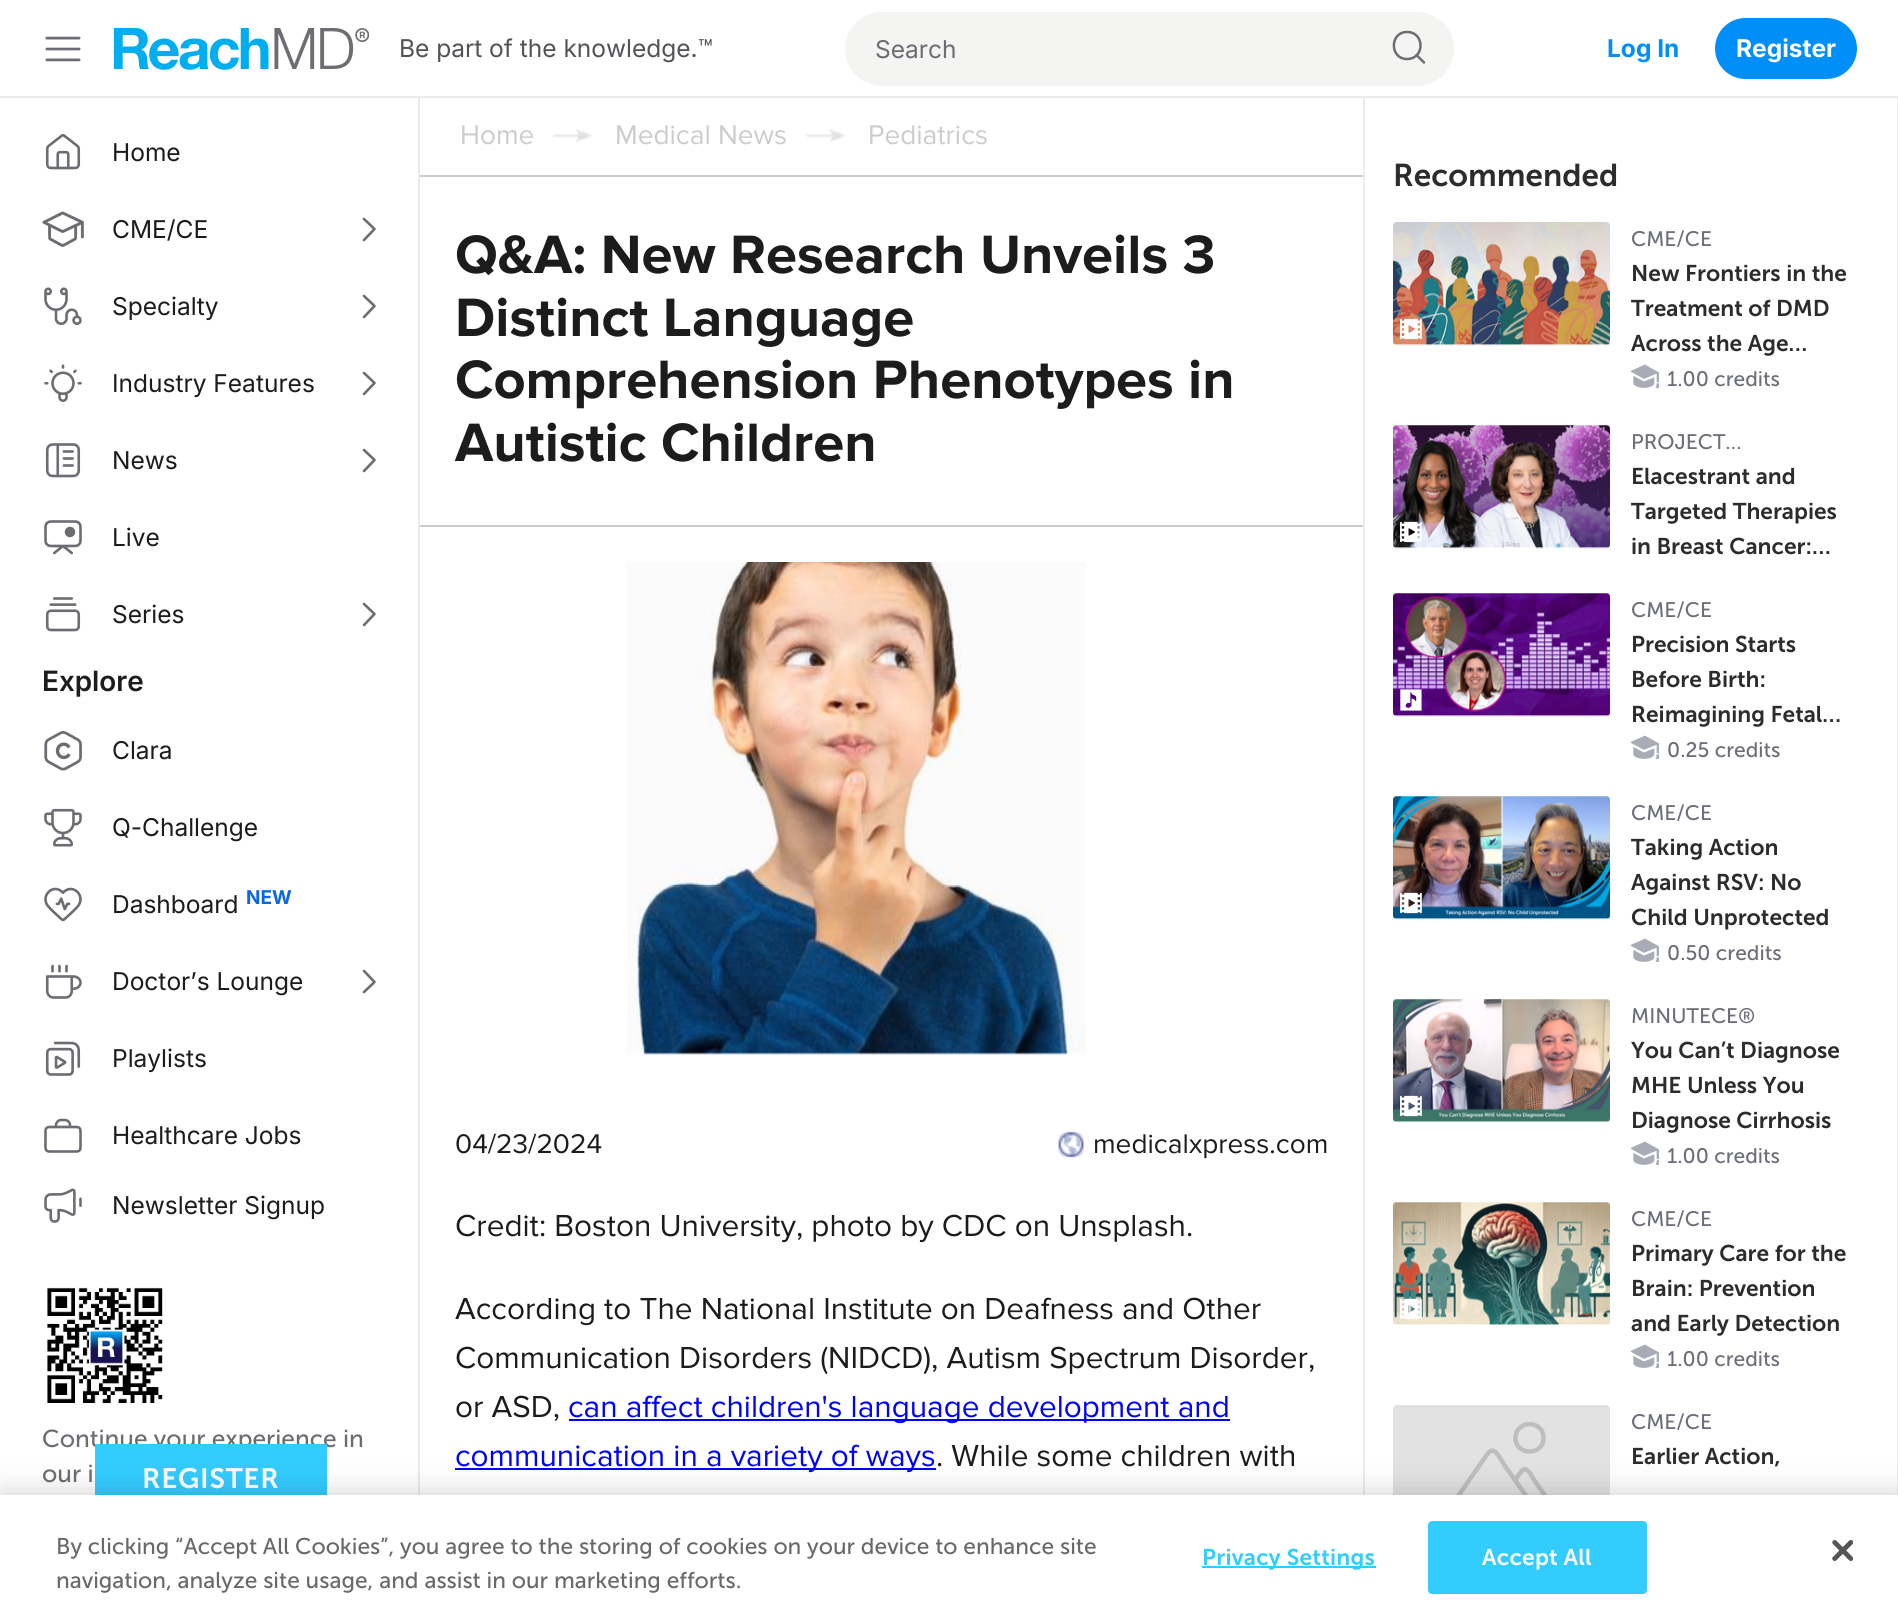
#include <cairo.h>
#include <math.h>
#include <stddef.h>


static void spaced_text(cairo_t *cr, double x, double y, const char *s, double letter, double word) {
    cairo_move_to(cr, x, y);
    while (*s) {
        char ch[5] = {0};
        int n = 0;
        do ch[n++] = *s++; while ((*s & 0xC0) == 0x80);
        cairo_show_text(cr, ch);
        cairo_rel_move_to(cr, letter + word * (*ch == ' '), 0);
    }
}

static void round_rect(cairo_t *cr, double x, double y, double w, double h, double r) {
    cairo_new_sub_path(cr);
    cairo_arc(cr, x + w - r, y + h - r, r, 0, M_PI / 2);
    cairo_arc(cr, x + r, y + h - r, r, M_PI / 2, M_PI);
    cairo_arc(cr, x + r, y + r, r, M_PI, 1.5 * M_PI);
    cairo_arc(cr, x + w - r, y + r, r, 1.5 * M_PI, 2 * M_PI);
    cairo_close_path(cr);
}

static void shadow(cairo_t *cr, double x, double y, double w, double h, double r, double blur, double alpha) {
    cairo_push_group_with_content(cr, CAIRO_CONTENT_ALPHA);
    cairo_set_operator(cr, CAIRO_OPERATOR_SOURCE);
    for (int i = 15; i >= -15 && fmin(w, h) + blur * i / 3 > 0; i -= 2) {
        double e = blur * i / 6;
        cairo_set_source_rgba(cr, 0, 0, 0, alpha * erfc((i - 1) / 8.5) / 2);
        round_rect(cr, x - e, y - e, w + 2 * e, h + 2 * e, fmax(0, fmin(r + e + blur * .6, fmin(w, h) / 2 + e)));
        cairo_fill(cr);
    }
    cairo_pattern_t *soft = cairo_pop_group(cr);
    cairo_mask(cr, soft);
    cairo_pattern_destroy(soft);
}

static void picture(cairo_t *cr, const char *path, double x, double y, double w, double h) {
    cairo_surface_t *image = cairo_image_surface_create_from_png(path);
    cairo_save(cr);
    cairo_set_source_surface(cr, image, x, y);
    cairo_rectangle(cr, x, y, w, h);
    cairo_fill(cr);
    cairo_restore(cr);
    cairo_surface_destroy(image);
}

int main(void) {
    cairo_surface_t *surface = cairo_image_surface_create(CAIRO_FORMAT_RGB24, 1898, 1615);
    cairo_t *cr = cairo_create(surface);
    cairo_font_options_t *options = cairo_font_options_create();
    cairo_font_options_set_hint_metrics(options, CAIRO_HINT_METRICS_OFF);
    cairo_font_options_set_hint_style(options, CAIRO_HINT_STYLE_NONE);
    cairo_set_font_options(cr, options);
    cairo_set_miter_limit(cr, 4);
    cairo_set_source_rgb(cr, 1, 1, 1);
    cairo_paint(cr);
    cairo_set_source_rgb(cr, 0.918, 0.918, 0.918);
    cairo_rectangle(cr, 418, 96, 2, 1399);
    cairo_fill(cr);
    cairo_rectangle(cr, 1897, 96, 1, 1399);
    cairo_fill(cr);
    cairo_rectangle(cr, 1363, 96, 2, 1399);
    cairo_fill(cr);
    cairo_rectangle(cr, 0, 96, 1898, 2);
    cairo_fill(cr);
    picture(cr, "img1.png", 45, 36, 36, 26);
    picture(cr, "img2.png", 114, 28, 255, 42);
    cairo_select_font_face(cr, "Inter", CAIRO_FONT_SLANT_NORMAL, CAIRO_FONT_WEIGHT_NORMAL);
    cairo_set_font_size(cr, 24.5);
    cairo_set_source_rgb(cr, 0.322, 0.322, 0.341);
    cairo_move_to(cr, 399, 57);
    cairo_show_text(cr, "Be part of the knowledge.™");
    cairo_set_source_rgb(cr, 0.957, 0.957, 0.953);
    cairo_new_path(cr);
    cairo_move_to(cr, 882, 12);
    cairo_line_to(cr, 1370, 12);
    cairo_line_to(cr, 1370, 86);
    cairo_line_to(cr, 882, 86);
    cairo_curve_to(cr, 861.5, 86, 845, 69.5, 845, 49);
    cairo_curve_to(cr, 845, 28.5, 861.5, 12, 882, 12);
    cairo_close_path(cr);
    cairo_fill(cr);
    cairo_set_source_rgb(cr, 0.424, 0.424, 0.447);
    cairo_move_to(cr, 875, 58);
    cairo_show_text(cr, "Search");
    cairo_set_source_rgb(cr, 0.957, 0.957, 0.953);
    cairo_new_path(cr);
    cairo_move_to(cr, 1370, 12);
    cairo_line_to(cr, 1417, 12);
    cairo_curve_to(cr, 1437.5, 12, 1454, 28.5, 1454, 49);
    cairo_curve_to(cr, 1454, 69.5, 1437.5, 86, 1417, 86);
    cairo_line_to(cr, 1370, 86);
    cairo_close_path(cr);
    cairo_fill(cr);
    cairo_new_path(cr);
    cairo_move_to(cr, 1407, 59);
    cairo_curve_to(cr, 1425, 59, 1425, 32, 1407, 32);
    cairo_curve_to(cr, 1389.5, 32, 1389.5, 59, 1407, 59);
    cairo_close_path(cr);
    cairo_move_to(cr, 1424, 62.5);
    cairo_line_to(cr, 1416.5, 55);
    cairo_set_source_rgb(cr, 0.424, 0.424, 0.447);
    cairo_set_line_width(cr, 2.5);
    cairo_set_line_cap(cr, CAIRO_LINE_CAP_ROUND);
    cairo_set_line_join(cr, CAIRO_LINE_JOIN_ROUND);
    cairo_stroke(cr);
    cairo_select_font_face(cr, "Inter", CAIRO_FONT_SLANT_NORMAL, CAIRO_FONT_WEIGHT_BOLD);
    cairo_set_source_rgb(cr, 0, 0.561, 0.973);
    cairo_move_to(cr, 1607, 57);
    cairo_show_text(cr, "Log In");
    round_rect(cr, 1715, 18, 142, 61, 30.5);
    cairo_fill(cr);
    cairo_set_source_rgb(cr, 1, 1, 1);
    cairo_move_to(cr, 1736, 57);
    cairo_show_text(cr, "Register");
    picture(cr, "img3.png", 45, 134, 36, 36);
    cairo_select_font_face(cr, "Inter", CAIRO_FONT_SLANT_NORMAL, CAIRO_FONT_WEIGHT_NORMAL);
    cairo_set_source_rgb(cr, 0.11, 0.11, 0.11);
    cairo_move_to(cr, 112, 161);
    cairo_show_text(cr, "Home");
    picture(cr, "img4.png", 42, 211, 42, 36);
    cairo_move_to(cr, 112, 238);
    cairo_show_text(cr, "CME/CE");
    cairo_new_path(cr);
    cairo_move_to(cr, 364, 240);
    cairo_line_to(cr, 374.5, 229);
    cairo_line_to(cr, 364, 219);
    cairo_set_source_rgb(cr, 0.424, 0.424, 0.447);
    cairo_set_line_width(cr, 2.6);
    cairo_stroke(cr);
    picture(cr, "img5.png", 44, 287, 38, 38);
    cairo_set_source_rgb(cr, 0.11, 0.11, 0.11);
    cairo_move_to(cr, 112, 315);
    cairo_show_text(cr, "Specialty");
    cairo_new_path(cr);
    cairo_move_to(cr, 364, 317);
    cairo_line_to(cr, 374.5, 306);
    cairo_line_to(cr, 364, 296);
    cairo_set_source_rgb(cr, 0.424, 0.424, 0.447);
    cairo_stroke(cr);
    picture(cr, "img6.png", 44, 364, 38, 38);
    cairo_set_source_rgb(cr, 0.11, 0.11, 0.11);
    cairo_move_to(cr, 112, 392);
    cairo_show_text(cr, "Industry Features");
    cairo_new_path(cr);
    cairo_move_to(cr, 364, 394);
    cairo_line_to(cr, 374.5, 383);
    cairo_line_to(cr, 364, 373);
    cairo_set_source_rgb(cr, 0.424, 0.424, 0.447);
    cairo_stroke(cr);
    picture(cr, "img7.png", 45, 443, 36, 35);
    cairo_set_source_rgb(cr, 0.11, 0.11, 0.11);
    cairo_move_to(cr, 112, 469);
    cairo_show_text(cr, "News");
    cairo_new_path(cr);
    cairo_move_to(cr, 364, 471);
    cairo_line_to(cr, 374.5, 460);
    cairo_line_to(cr, 364, 450);
    cairo_set_source_rgb(cr, 0.424, 0.424, 0.447);
    cairo_stroke(cr);
    picture(cr, "img8.png", 44, 520, 38, 35);
    cairo_set_source_rgb(cr, 0.11, 0.11, 0.11);
    cairo_move_to(cr, 112, 546);
    cairo_show_text(cr, "Live");
    picture(cr, "img9.png", 45, 597, 36, 35);
    cairo_move_to(cr, 112, 623);
    cairo_show_text(cr, "Series");
    cairo_new_path(cr);
    cairo_move_to(cr, 364, 625);
    cairo_line_to(cr, 374.5, 614);
    cairo_line_to(cr, 364, 604);
    cairo_set_source_rgb(cr, 0.424, 0.424, 0.447);
    cairo_stroke(cr);
    cairo_select_font_face(cr, "Inter SemiBold", CAIRO_FONT_SLANT_NORMAL, CAIRO_FONT_WEIGHT_NORMAL);
    cairo_set_font_size(cr, 28);
    cairo_set_source_rgb(cr, 0.11, 0.11, 0.11);
    cairo_move_to(cr, 42, 691);
    cairo_show_text(cr, "Explore");
    picture(cr, "img10.png", 44, 731, 38, 40);
    cairo_select_font_face(cr, "Inter", CAIRO_FONT_SLANT_NORMAL, CAIRO_FONT_WEIGHT_NORMAL);
    cairo_set_font_size(cr, 24.5);
    cairo_move_to(cr, 112, 759);
    cairo_show_text(cr, "Clara");
    picture(cr, "img11.png", 44, 808, 38, 39);
    cairo_move_to(cr, 112, 836);
    cairo_show_text(cr, "Q-Challenge");
    picture(cr, "img12.png", 44, 887, 38, 35);
    cairo_move_to(cr, 112, 913);
    cairo_show_text(cr, "Dashboard");
    cairo_select_font_face(cr, "Inter", CAIRO_FONT_SLANT_NORMAL, CAIRO_FONT_WEIGHT_BOLD);
    cairo_set_font_size(cr, 19);
    cairo_set_source_rgb(cr, 0.043, 0.4, 0.894);
    cairo_move_to(cr, 246, 904);
    cairo_show_text(cr, "NEW");
    picture(cr, "img13.png", 45, 964, 37, 35);
    cairo_select_font_face(cr, "Inter", CAIRO_FONT_SLANT_NORMAL, CAIRO_FONT_WEIGHT_NORMAL);
    cairo_set_font_size(cr, 24.5);
    cairo_set_source_rgb(cr, 0.11, 0.11, 0.11);
    cairo_move_to(cr, 112, 990);
    cairo_show_text(cr, "Doctor’s Lounge");
    cairo_new_path(cr);
    cairo_move_to(cr, 364, 992);
    cairo_line_to(cr, 374.5, 982);
    cairo_line_to(cr, 364, 971);
    cairo_set_source_rgb(cr, 0.424, 0.424, 0.447);
    cairo_stroke(cr);
    picture(cr, "img14.png", 45, 1041, 36, 35);
    cairo_set_source_rgb(cr, 0.11, 0.11, 0.11);
    cairo_move_to(cr, 112, 1067);
    cairo_show_text(cr, "Playlists");
    picture(cr, "img15.png", 44, 1118, 38, 35);
    cairo_move_to(cr, 112, 1144);
    cairo_show_text(cr, "Healthcare Jobs");
    picture(cr, "img16.png", 44, 1188, 38, 35);
    cairo_move_to(cr, 112, 1214);
    cairo_show_text(cr, "Newsletter Signup");
    picture(cr, "img17.png", 47, 1287, 116, 116);
    cairo_select_font_face(cr, "Museo Sans", CAIRO_FONT_SLANT_NORMAL, CAIRO_FONT_WEIGHT_NORMAL);
    cairo_set_source_rgb(cr, 0.424, 0.424, 0.447);
    cairo_move_to(cr, 42, 1447);
    cairo_show_text(cr, "Continue your experience in");
    cairo_move_to(cr, 42, 1482);
    cairo_show_text(cr, "our i");
    cairo_set_source_rgb(cr, 0.8, 0.8, 0.8);
    cairo_rectangle(cr, 420, 175, 943, 2);
    cairo_fill(cr);
    cairo_select_font_face(cr, "Proxima Nova", CAIRO_FONT_SLANT_NORMAL, CAIRO_FONT_WEIGHT_NORMAL);
    cairo_set_font_size(cr, 28);
    cairo_move_to(cr, 460, 144);
    cairo_show_text(cr, "Home");
    picture(cr, "img18.png", 553, 129, 39, 13);
    cairo_move_to(cr, 615, 144);
    cairo_show_text(cr, "Medical News");
    picture(cr, "img19.png", 806, 129, 39, 13);
    cairo_move_to(cr, 868, 144);
    cairo_show_text(cr, "Pediatrics");
    cairo_rectangle(cr, 420, 525, 943, 2);
    cairo_fill(cr);
    cairo_select_font_face(cr, "Proxima Nova", CAIRO_FONT_SLANT_NORMAL, CAIRO_FONT_WEIGHT_BOLD);
    cairo_set_font_size(cr, 56);
    cairo_set_source_rgb(cr, 0.11, 0.11, 0.11);
    cairo_move_to(cr, 455, 273);
    cairo_show_text(cr, "Q&A: New Research Unveils 3");
    cairo_move_to(cr, 455, 336);
    cairo_show_text(cr, "Distinct Language");
    cairo_move_to(cr, 455, 398);
    cairo_show_text(cr, "Comprehension Phenotypes in");
    cairo_move_to(cr, 455, 461);
    cairo_show_text(cr, "Autistic Children");
    picture(cr, "img20.png", 627, 562, 459, 493);
    cairo_select_font_face(cr, "Proxima Nova", CAIRO_FONT_SLANT_NORMAL, CAIRO_FONT_WEIGHT_NORMAL);
    cairo_set_font_size(cr, 28);
    cairo_move_to(cr, 455, 1153);
    cairo_show_text(cr, "04/23/2024");
    picture(cr, "img21.png", 1058, 1131, 26, 27);
    cairo_move_to(cr, 1093, 1153);
    cairo_show_text(cr, "medicalxpress.com");
    cairo_set_font_size(cr, 31.5);
    cairo_move_to(cr, 455, 1236);
    cairo_show_text(cr, "Credit: Boston University, photo by CDC on Unsplash.");
    cairo_move_to(cr, 455, 1319);
    cairo_show_text(cr, "According to The National Institute on Deafness and Other");
    cairo_move_to(cr, 455, 1368);
    cairo_show_text(cr, "Communication Disorders (NIDCD), Autism Spectrum Disorder,");
    cairo_move_to(cr, 455, 1417);
    cairo_show_text(cr, "or ASD,");
    cairo_set_source_rgb(cr, 0, 0, 1);
    cairo_rectangle(cr, 569, 1419, 661, 2);
    cairo_fill(cr);
    cairo_move_to(cr, 568, 1417);
    cairo_show_text(cr, "can affect children's language development and");
    cairo_rectangle(cr, 455, 1468, 481, 2);
    cairo_fill(cr);
    cairo_move_to(cr, 455, 1466);
    cairo_show_text(cr, "communication in a variety of ways");
    cairo_set_source_rgb(cr, 0.11, 0.11, 0.11);
    cairo_move_to(cr, 936, 1466);
    cairo_show_text(cr, ". While some children with");
    cairo_select_font_face(cr, "Museo Sans SemiBold", CAIRO_FONT_SLANT_NORMAL, CAIRO_FONT_WEIGHT_NORMAL);
    cairo_set_source_rgb(cr, 0.173, 0.173, 0.173);
    cairo_move_to(cr, 1393, 186);
    cairo_show_text(cr, "Recommended");
    picture(cr, "img22.png", 1393, 222, 217, 124);
    picture(cr, "img23.png", 1400, 318, 22, 22);
    cairo_select_font_face(cr, "Museo Sans", CAIRO_FONT_SLANT_NORMAL, CAIRO_FONT_WEIGHT_NORMAL);
    cairo_set_font_size(cr, 21);
    cairo_set_source_rgb(cr, 0.424, 0.431, 0.475);
    cairo_move_to(cr, 1631, 246);
    cairo_show_text(cr, "CME/CE");
    cairo_select_font_face(cr, "Museo Sans SemiBold", CAIRO_FONT_SLANT_NORMAL, CAIRO_FONT_WEIGHT_NORMAL);
    cairo_set_font_size(cr, 22.75);
    cairo_set_source_rgb(cr, 0.173, 0.173, 0.173);
    cairo_move_to(cr, 1631, 281);
    cairo_show_text(cr, "New Frontiers in the");
    cairo_move_to(cr, 1631, 316);
    cairo_show_text(cr, "Treatment of DMD");
    cairo_move_to(cr, 1631, 351);
    cairo_show_text(cr, "Across the Age…");
    picture(cr, "img24.png", 1631, 364, 28, 24);
    cairo_select_font_face(cr, "Museo Sans", CAIRO_FONT_SLANT_NORMAL, CAIRO_FONT_WEIGHT_NORMAL);
    cairo_set_font_size(cr, 21);
    cairo_set_source_rgb(cr, 0.424, 0.431, 0.475);
    cairo_move_to(cr, 1667, 386);
    cairo_show_text(cr, "1.00 credits");
    picture(cr, "img25.png", 1393, 425, 217, 124);
    picture(cr, "img26.png", 1400, 521, 22, 22);
    cairo_move_to(cr, 1631, 449);
    cairo_show_text(cr, "PROJECT…");
    cairo_select_font_face(cr, "Museo Sans SemiBold", CAIRO_FONT_SLANT_NORMAL, CAIRO_FONT_WEIGHT_NORMAL);
    cairo_set_font_size(cr, 22.75);
    cairo_set_source_rgb(cr, 0.173, 0.173, 0.173);
    cairo_move_to(cr, 1631, 484);
    cairo_show_text(cr, "Elacestrant and");
    cairo_move_to(cr, 1631, 519);
    cairo_show_text(cr, "Targeted Therapies");
    cairo_move_to(cr, 1631, 554);
    cairo_show_text(cr, "in Breast Cancer:…");
    picture(cr, "img27.png", 1393, 593, 217, 124);
    picture(cr, "img28.png", 1400, 689, 22, 22);
    cairo_select_font_face(cr, "Museo Sans", CAIRO_FONT_SLANT_NORMAL, CAIRO_FONT_WEIGHT_NORMAL);
    cairo_set_font_size(cr, 21);
    cairo_set_source_rgb(cr, 0.424, 0.431, 0.475);
    cairo_move_to(cr, 1631, 617);
    cairo_show_text(cr, "CME/CE");
    cairo_select_font_face(cr, "Museo Sans SemiBold", CAIRO_FONT_SLANT_NORMAL, CAIRO_FONT_WEIGHT_NORMAL);
    cairo_set_font_size(cr, 22.75);
    cairo_set_source_rgb(cr, 0.173, 0.173, 0.173);
    cairo_move_to(cr, 1631, 652);
    cairo_show_text(cr, "Precision Starts");
    cairo_move_to(cr, 1631, 687);
    cairo_show_text(cr, "Before Birth:");
    cairo_move_to(cr, 1631, 722);
    cairo_show_text(cr, "Reimagining Fetal…");
    picture(cr, "img24.png", 1631, 735, 28, 24);
    cairo_select_font_face(cr, "Museo Sans", CAIRO_FONT_SLANT_NORMAL, CAIRO_FONT_WEIGHT_NORMAL);
    cairo_set_font_size(cr, 21);
    cairo_set_source_rgb(cr, 0.424, 0.431, 0.475);
    cairo_move_to(cr, 1667, 757);
    cairo_show_text(cr, "0.25 credits");
    picture(cr, "img29.png", 1393, 796, 217, 124);
    picture(cr, "img30.png", 1400, 892, 22, 22);
    cairo_move_to(cr, 1631, 820);
    cairo_show_text(cr, "CME/CE");
    cairo_select_font_face(cr, "Museo Sans SemiBold", CAIRO_FONT_SLANT_NORMAL, CAIRO_FONT_WEIGHT_NORMAL);
    cairo_set_font_size(cr, 22.75);
    cairo_set_source_rgb(cr, 0.173, 0.173, 0.173);
    cairo_move_to(cr, 1631, 855);
    cairo_show_text(cr, "Taking Action");
    cairo_move_to(cr, 1631, 890);
    cairo_show_text(cr, "Against RSV: No");
    cairo_move_to(cr, 1631, 925);
    cairo_show_text(cr, "Child Unprotected");
    picture(cr, "img24.png", 1631, 938, 28, 24);
    cairo_select_font_face(cr, "Museo Sans", CAIRO_FONT_SLANT_NORMAL, CAIRO_FONT_WEIGHT_NORMAL);
    cairo_set_font_size(cr, 21);
    cairo_set_source_rgb(cr, 0.424, 0.431, 0.475);
    cairo_move_to(cr, 1667, 960);
    cairo_show_text(cr, "0.50 credits");
    picture(cr, "img31.png", 1393, 999, 217, 124);
    picture(cr, "img32.png", 1400, 1095, 22, 22);
    cairo_move_to(cr, 1631, 1023);
    cairo_show_text(cr, "MINUTECE®");
    cairo_select_font_face(cr, "Museo Sans SemiBold", CAIRO_FONT_SLANT_NORMAL, CAIRO_FONT_WEIGHT_NORMAL);
    cairo_set_font_size(cr, 22.75);
    cairo_set_source_rgb(cr, 0.173, 0.173, 0.173);
    cairo_move_to(cr, 1631, 1058);
    cairo_show_text(cr, "You Can’t Diagnose");
    cairo_move_to(cr, 1631, 1093);
    cairo_show_text(cr, "MHE Unless You");
    cairo_move_to(cr, 1631, 1128);
    cairo_show_text(cr, "Diagnose Cirrhosis");
    picture(cr, "img24.png", 1631, 1141, 28, 24);
    cairo_select_font_face(cr, "Museo Sans", CAIRO_FONT_SLANT_NORMAL, CAIRO_FONT_WEIGHT_NORMAL);
    cairo_set_font_size(cr, 21);
    cairo_set_source_rgb(cr, 0.424, 0.431, 0.475);
    cairo_move_to(cr, 1667, 1163);
    cairo_show_text(cr, "1.00 credits");
    picture(cr, "img33.png", 1393, 1202, 217, 123);
    picture(cr, "img34.png", 1400, 1298, 22, 22);
    cairo_move_to(cr, 1631, 1226);
    cairo_show_text(cr, "CME/CE");
    cairo_select_font_face(cr, "Museo Sans SemiBold", CAIRO_FONT_SLANT_NORMAL, CAIRO_FONT_WEIGHT_NORMAL);
    cairo_set_font_size(cr, 22.75);
    cairo_set_source_rgb(cr, 0.173, 0.173, 0.173);
    cairo_move_to(cr, 1631, 1261);
    cairo_show_text(cr, "Primary Care for the");
    cairo_move_to(cr, 1631, 1296);
    cairo_show_text(cr, "Brain: Prevention");
    cairo_move_to(cr, 1631, 1331);
    cairo_show_text(cr, "and Early Detection");
    picture(cr, "img24.png", 1631, 1344, 28, 24);
    cairo_select_font_face(cr, "Museo Sans", CAIRO_FONT_SLANT_NORMAL, CAIRO_FONT_WEIGHT_NORMAL);
    cairo_set_font_size(cr, 21);
    cairo_set_source_rgb(cr, 0.424, 0.431, 0.475);
    cairo_move_to(cr, 1667, 1366);
    cairo_show_text(cr, "1.00 credits");
    cairo_set_source_rgb(cr, 0.886, 0.886, 0.886);
    cairo_new_path(cr);
    cairo_move_to(cr, 1397, 1405);
    cairo_line_to(cr, 1606, 1405);
    cairo_curve_to(cr, 1608, 1405, 1610, 1407, 1610, 1409);
    cairo_line_to(cr, 1610, 1514);
    cairo_line_to(cr, 1393, 1514);
    cairo_line_to(cr, 1393, 1409);
    cairo_curve_to(cr, 1393, 1407, 1395, 1405, 1397, 1405);
    cairo_close_path(cr);
    cairo_fill(cr);
    cairo_new_path(cr);
    cairo_move_to(cr, 1534, 1507);
    cairo_line_to(cr, 1545.5, 1507);
    cairo_curve_to(cr, 1553, 1504.5, 1544, 1495, 1542.5, 1492);
    cairo_line_to(cr, 1533, 1478.5);
    cairo_curve_to(cr, 1531.5, 1475.5, 1527, 1466, 1522, 1470.5);
    cairo_line_to(cr, 1515, 1480);
    cairo_move_to(cr, 1534, 1507);
    cairo_line_to(cr, 1504, 1464.5);
    cairo_curve_to(cr, 1503.5, 1463.5, 1497, 1452, 1494, 1451);
    cairo_curve_to(cr, 1490, 1449.5, 1488, 1453.5, 1486, 1456);
    cairo_line_to(cr, 1458.5, 1495.5);
    cairo_curve_to(cr, 1456.5, 1498.5, 1451.5, 1505, 1457.5, 1507);
    cairo_close_path(cr);
    cairo_move_to(cr, 1543.5, 1438);
    cairo_curve_to(cr, 1543.5, 1456, 1515.5, 1456, 1515.5, 1438);
    cairo_curve_to(cr, 1515.5, 1419.5, 1543.5, 1419.5, 1543.5, 1438);
    cairo_close_path(cr);
    cairo_set_source_rgb(cr, 0.745, 0.745, 0.745);
    cairo_set_line_width(cr, 4.5);
    cairo_stroke(cr);
    cairo_set_source_rgb(cr, 0.424, 0.431, 0.475);
    cairo_move_to(cr, 1631, 1429);
    cairo_show_text(cr, "CME/CE");
    cairo_select_font_face(cr, "Museo Sans SemiBold", CAIRO_FONT_SLANT_NORMAL, CAIRO_FONT_WEIGHT_NORMAL);
    cairo_set_font_size(cr, 22.75);
    cairo_set_source_rgb(cr, 0.173, 0.173, 0.173);
    cairo_move_to(cr, 1631, 1464);
    cairo_show_text(cr, "Earlier Action,");
    cairo_set_source_rgb(cr, 0.2, 0.8, 1);
    cairo_rectangle(cr, 95, 1444, 232, 51);
    cairo_fill(cr);
    cairo_set_font_size(cr, 28);
    cairo_set_source_rgb(cr, 1, 1, 1);
    spaced_text(cr, 142, 1488, "REGISTER", 0.75, 0);
    cairo_set_source_rgb(cr, 0, 0, 0);
    shadow(cr, 0, 1495, 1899, 120, 0, 16, 0.2);
    cairo_set_source_rgb(cr, 1, 1, 1);
    cairo_rectangle(cr, 0, 1495, 1898, 120);
    cairo_fill(cr);
    cairo_select_font_face(cr, "Museo Sans", CAIRO_FONT_SLANT_NORMAL, CAIRO_FONT_WEIGHT_NORMAL);
    cairo_set_font_size(cr, 22.75);
    cairo_set_source_rgb(cr, 0.412, 0.412, 0.412);
    cairo_move_to(cr, 56, 1554);
    cairo_show_text(cr, "By clicking “Accept All Cookies”, you agree to the storing of cookies on your device to enhance site");
    cairo_move_to(cr, 56, 1588);
    cairo_show_text(cr, "navigation, analyze site usage, and assist in our marketing efforts.");
    cairo_set_source_rgb(cr, 0.2, 0.8, 1);
    cairo_rectangle(cr, 1202, 1566, 174, 2);
    cairo_fill(cr);
    cairo_select_font_face(cr, "Museo Sans SemiBold", CAIRO_FONT_SLANT_NORMAL, CAIRO_FONT_WEIGHT_NORMAL);
    spaced_text(cr, 1202, 1565, "Privacy Settings", 0.25, 0);
    round_rect(cr, 1429, 1522, 217, 71, 3);
    cairo_fill_preserve(cr);
    cairo_set_line_width(cr, 2);
    cairo_set_line_cap(cr, CAIRO_LINE_CAP_BUTT);
    cairo_set_line_join(cr, CAIRO_LINE_JOIN_MITER);
    cairo_stroke(cr);
    cairo_set_source_rgb(cr, 1, 1, 1);
    spaced_text(cr, 1482, 1565, "Accept All", 0.25, 0);
    picture(cr, "img35.png", 1832, 1540, 21, 21);
    cairo_surface_write_to_png(surface, "page.png");
    cairo_font_options_destroy(options);
    cairo_destroy(cr);
    cairo_surface_destroy(surface);
    return 0;
}
